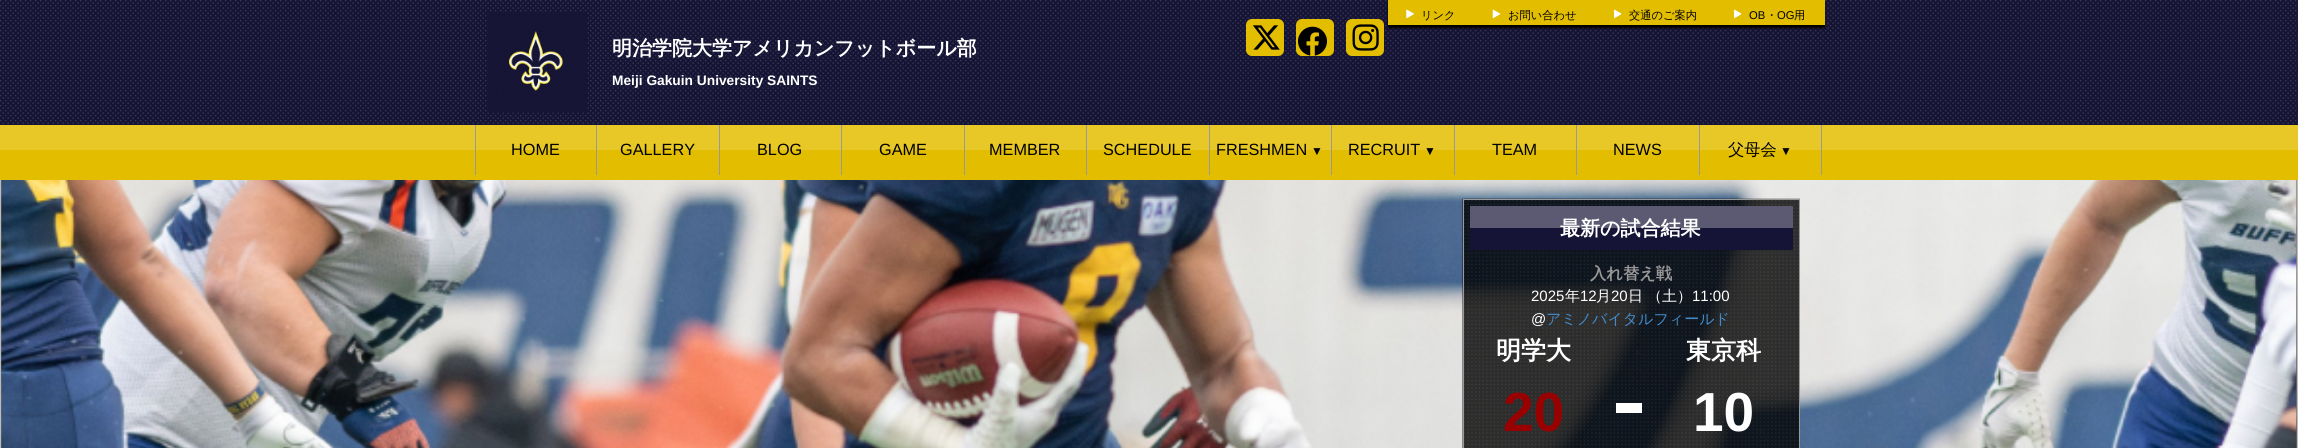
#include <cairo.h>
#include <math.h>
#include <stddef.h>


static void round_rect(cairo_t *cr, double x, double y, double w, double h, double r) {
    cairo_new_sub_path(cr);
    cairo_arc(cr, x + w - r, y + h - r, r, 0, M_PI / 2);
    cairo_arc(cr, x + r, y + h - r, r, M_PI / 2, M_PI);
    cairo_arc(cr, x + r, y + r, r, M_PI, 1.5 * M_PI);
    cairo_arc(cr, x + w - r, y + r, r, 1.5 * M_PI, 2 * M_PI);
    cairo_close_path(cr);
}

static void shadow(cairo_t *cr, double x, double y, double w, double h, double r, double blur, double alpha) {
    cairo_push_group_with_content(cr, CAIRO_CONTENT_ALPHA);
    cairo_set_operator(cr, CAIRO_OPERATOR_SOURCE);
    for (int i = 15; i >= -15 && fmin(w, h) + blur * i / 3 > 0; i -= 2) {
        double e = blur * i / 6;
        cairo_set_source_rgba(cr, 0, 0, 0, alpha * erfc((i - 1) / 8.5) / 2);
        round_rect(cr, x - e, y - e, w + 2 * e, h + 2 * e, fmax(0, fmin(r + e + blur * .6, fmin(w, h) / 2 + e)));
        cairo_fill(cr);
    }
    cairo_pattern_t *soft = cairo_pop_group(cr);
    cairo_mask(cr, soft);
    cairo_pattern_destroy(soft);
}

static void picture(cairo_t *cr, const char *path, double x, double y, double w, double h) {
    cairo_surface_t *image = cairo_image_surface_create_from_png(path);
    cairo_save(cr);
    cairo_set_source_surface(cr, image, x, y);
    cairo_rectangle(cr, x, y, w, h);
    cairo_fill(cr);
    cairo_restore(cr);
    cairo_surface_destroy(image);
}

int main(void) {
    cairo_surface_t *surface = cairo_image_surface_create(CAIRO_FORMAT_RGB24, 2298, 448);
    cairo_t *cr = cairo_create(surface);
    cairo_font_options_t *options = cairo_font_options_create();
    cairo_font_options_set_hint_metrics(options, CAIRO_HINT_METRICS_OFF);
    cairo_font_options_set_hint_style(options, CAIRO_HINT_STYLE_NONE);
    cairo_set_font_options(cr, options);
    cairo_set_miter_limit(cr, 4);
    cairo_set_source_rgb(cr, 0.086, 0.082, 0.208);
    cairo_paint(cr);
    picture(cr, "img1.png", 0, 0, 2298, 446);
    cairo_set_source_rgb(cr, 0.086, 0.082, 0.208);
    cairo_rectangle(cr, 475, 0, 1349, 124);
    cairo_fill(cr);
    picture(cr, "img2.png", 475, 0, 1349, 124);
    cairo_set_source_rgb(cr, 0, 0, 0);
    shadow(cr, 1388, 3, 437, 25, 0, 1, 1);
    cairo_set_source_rgb(cr, 0.89, 0.745, 0);
    cairo_rectangle(cr, 1388, 0, 437, 25);
    cairo_fill(cr);
    picture(cr, "img3.png", 1406, 9, 8, 10);
    cairo_select_font_face(cr, "WenQuanYi Zen Hei Medium", CAIRO_FONT_SLANT_NORMAL, CAIRO_FONT_WEIGHT_NORMAL);
    cairo_set_font_size(cr, 11.25);
    cairo_set_source_rgb(cr, 0, 0, 0);
    cairo_move_to(cr, 1421, 19);
    cairo_show_text(cr, "リンク");
    picture(cr, "img4.png", 1492, 9, 9, 10);
    cairo_move_to(cr, 1508, 19);
    cairo_show_text(cr, "お問い合わせ");
    picture(cr, "img5.png", 1614, 9, 8, 10);
    cairo_move_to(cr, 1629, 19);
    cairo_show_text(cr, "交通のご案内");
    picture(cr, "img6.png", 1734, 9, 8, 10);
    cairo_select_font_face(cr, "Liberation Sans", CAIRO_FONT_SLANT_NORMAL, CAIRO_FONT_WEIGHT_NORMAL);
    cairo_move_to(cr, 1749, 19);
    cairo_show_text(cr, "OB");
    cairo_select_font_face(cr, "WenQuanYi Zen Hei Medium", CAIRO_FONT_SLANT_NORMAL, CAIRO_FONT_WEIGHT_NORMAL);
    cairo_move_to(cr, 1766, 19);
    cairo_show_text(cr, "・");
    cairo_select_font_face(cr, "Liberation Sans", CAIRO_FONT_SLANT_NORMAL, CAIRO_FONT_WEIGHT_NORMAL);
    cairo_move_to(cr, 1777, 19);
    cairo_show_text(cr, "OG");
    cairo_select_font_face(cr, "WenQuanYi Zen Hei Medium", CAIRO_FONT_SLANT_NORMAL, CAIRO_FONT_WEIGHT_NORMAL);
    cairo_move_to(cr, 1794, 19);
    cairo_show_text(cr, "用");
    picture(cr, "img7.png", 487, 12, 101, 101);
    cairo_select_font_face(cr, "WenQuanYi Zen Hei", CAIRO_FONT_SLANT_NORMAL, CAIRO_FONT_WEIGHT_BOLD);
    cairo_set_font_size(cr, 20);
    cairo_set_source_rgb(cr, 1, 1, 1);
    cairo_move_to(cr, 612, 55);
    cairo_show_text(cr, "明治学院大学アメリカンフットボール部");
    cairo_select_font_face(cr, "Liberation Sans", CAIRO_FONT_SLANT_NORMAL, CAIRO_FONT_WEIGHT_BOLD);
    cairo_set_font_size(cr, 13.75);
    cairo_move_to(cr, 612, 85);
    cairo_show_text(cr, "Meiji Gakuin University SAINTS");
    cairo_set_source_rgb(cr, 0.89, 0.745, 0);
    round_rect(cr, 1246, 19, 38, 37, 6);
    cairo_fill(cr);
    picture(cr, "img8.png", 1253, 25, 27, 25);
    round_rect(cr, 1296, 19, 38, 37, 6);
    cairo_fill(cr);
    picture(cr, "img9.png", 1298, 26, 29, 30);
    round_rect(cr, 1346, 19, 38, 37, 6);
    cairo_fill(cr);
    picture(cr, "img10.png", 1352, 24, 27, 27);
    cairo_set_source_rgb(cr, 0.906, 0.784, 0.149);
    cairo_rectangle(cr, 0, 125, 2298, 25);
    cairo_fill(cr);
    cairo_set_source_rgb(cr, 0.89, 0.745, 0);
    cairo_rectangle(cr, 0, 150, 2298, 30);
    cairo_fill(cr);
    cairo_save(cr);
    cairo_rectangle(cr, 0, 180, 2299, 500);
    cairo_clip(cr);
    cairo_rectangle(cr, 0.5, -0.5, 2297, 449);
    cairo_set_source_rgb(cr, 0.733, 0.733, 0.733);
    cairo_set_line_width(cr, 1);
    cairo_stroke(cr);
    cairo_restore(cr);
    cairo_set_source_rgb(cr, 0.6, 0.6, 0.6);
    cairo_rectangle(cr, 596, 125, 1, 50);
    cairo_fill(cr);
    cairo_rectangle(cr, 475, 125, 1, 50);
    cairo_fill(cr);
    cairo_select_font_face(cr, "Liberation Sans", CAIRO_FONT_SLANT_NORMAL, CAIRO_FONT_WEIGHT_NORMAL);
    cairo_set_font_size(cr, 16.25);
    cairo_set_source_rgb(cr, 0, 0, 0);
    cairo_move_to(cr, 511, 155);
    cairo_show_text(cr, "HOME");
    cairo_set_source_rgb(cr, 0.6, 0.6, 0.6);
    cairo_rectangle(cr, 719, 125, 1, 50);
    cairo_fill(cr);
    cairo_set_source_rgb(cr, 0, 0, 0);
    cairo_move_to(cr, 620, 155);
    cairo_show_text(cr, "GALLERY");
    cairo_set_source_rgb(cr, 0.6, 0.6, 0.6);
    cairo_rectangle(cr, 841, 125, 1, 50);
    cairo_fill(cr);
    cairo_set_source_rgb(cr, 0, 0, 0);
    cairo_move_to(cr, 757, 155);
    cairo_show_text(cr, "BLOG");
    cairo_set_source_rgb(cr, 0.6, 0.6, 0.6);
    cairo_rectangle(cr, 964, 125, 1, 50);
    cairo_fill(cr);
    cairo_set_source_rgb(cr, 0, 0, 0);
    cairo_move_to(cr, 879, 155);
    cairo_show_text(cr, "GAME");
    cairo_set_source_rgb(cr, 0.6, 0.6, 0.6);
    cairo_rectangle(cr, 1086, 125, 1, 50);
    cairo_fill(cr);
    cairo_set_source_rgb(cr, 0, 0, 0);
    cairo_move_to(cr, 989, 155);
    cairo_show_text(cr, "MEMBER");
    cairo_set_source_rgb(cr, 0.6, 0.6, 0.6);
    cairo_rectangle(cr, 1209, 125, 1, 50);
    cairo_fill(cr);
    cairo_set_source_rgb(cr, 0, 0, 0);
    cairo_move_to(cr, 1103, 155);
    cairo_show_text(cr, "SCHEDULE");
    cairo_set_source_rgb(cr, 0.6, 0.6, 0.6);
    cairo_rectangle(cr, 1331, 125, 1, 50);
    cairo_fill(cr);
    cairo_set_source_rgb(cr, 0, 0, 0);
    cairo_move_to(cr, 1216, 155);
    cairo_show_text(cr, "FRESHMEN");
    cairo_set_font_size(cr, 12);
    cairo_move_to(cr, 1311, 155);
    cairo_show_text(cr, "▼");
    cairo_set_source_rgb(cr, 0.6, 0.6, 0.6);
    cairo_rectangle(cr, 1454, 125, 1, 50);
    cairo_fill(cr);
    cairo_set_font_size(cr, 16.25);
    cairo_set_source_rgb(cr, 0, 0, 0);
    cairo_move_to(cr, 1348, 155);
    cairo_show_text(cr, "RECRUIT");
    cairo_set_font_size(cr, 12);
    cairo_move_to(cr, 1424, 155);
    cairo_show_text(cr, "▼");
    cairo_set_source_rgb(cr, 0.6, 0.6, 0.6);
    cairo_rectangle(cr, 1576, 125, 1, 50);
    cairo_fill(cr);
    cairo_set_font_size(cr, 16.25);
    cairo_set_source_rgb(cr, 0, 0, 0);
    cairo_move_to(cr, 1492, 155);
    cairo_show_text(cr, "TEAM");
    cairo_set_source_rgb(cr, 0.6, 0.6, 0.6);
    cairo_rectangle(cr, 1699, 125, 1, 50);
    cairo_fill(cr);
    cairo_set_source_rgb(cr, 0, 0, 0);
    cairo_move_to(cr, 1613, 155);
    cairo_show_text(cr, "NEWS");
    cairo_set_source_rgb(cr, 0.6, 0.6, 0.6);
    cairo_rectangle(cr, 1821, 125, 1, 50);
    cairo_fill(cr);
    cairo_select_font_face(cr, "WenQuanYi Zen Hei Medium", CAIRO_FONT_SLANT_NORMAL, CAIRO_FONT_WEIGHT_NORMAL);
    cairo_set_source_rgb(cr, 0, 0, 0);
    cairo_move_to(cr, 1728, 155);
    cairo_show_text(cr, "父母会");
    cairo_select_font_face(cr, "Liberation Sans", CAIRO_FONT_SLANT_NORMAL, CAIRO_FONT_WEIGHT_NORMAL);
    cairo_set_font_size(cr, 12);
    cairo_move_to(cr, 1780, 155);
    cairo_show_text(cr, "▼");
    picture(cr, "img11.png", 1, 180, 2296, 268);
    picture(cr, "img12.png", 1, 180, 2296, 268);
    picture(cr, "img13.png", 1, 180, 2296, 268);
    picture(cr, "img14.png", 1, 180, 2296, 268);
    picture(cr, "img15.png", 1, 180, 2296, 268);
    picture(cr, "img16.png", 1, 180, 2296, 268);
    picture(cr, "img17.png", 1462, 198, 338, 250);
    cairo_rectangle(cr, 1463.5, 199.5, 336, 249);
    cairo_set_source_rgb(cr, 0.6, 0.6, 0.6);
    cairo_set_line_width(cr, 1);
    cairo_stroke(cr);
    cairo_set_source_rgb(cr, 0.086, 0.082, 0.212);
    cairo_rectangle(cr, 1470, 206, 323, 44);
    cairo_fill(cr);
    cairo_select_font_face(cr, "WenQuanYi Zen Hei", CAIRO_FONT_SLANT_NORMAL, CAIRO_FONT_WEIGHT_BOLD);
    cairo_set_font_size(cr, 20);
    cairo_set_source_rgb(cr, 1, 1, 1);
    cairo_move_to(cr, 1560, 235);
    cairo_show_text(cr, "最新の試合結果");
    cairo_set_source_rgba(cr, 1, 1, 1, 0.3);
    cairo_rectangle(cr, 1470, 206, 323, 22);
    cairo_fill(cr);
    cairo_set_font_size(cr, 16.25);
    cairo_set_source_rgb(cr, 0.6, 0.6, 0.6);
    cairo_move_to(cr, 1590, 279);
    cairo_show_text(cr, "入れ替え戦");
    cairo_select_font_face(cr, "Liberation Sans", CAIRO_FONT_SLANT_NORMAL, CAIRO_FONT_WEIGHT_NORMAL);
    cairo_set_font_size(cr, 15);
    cairo_set_source_rgb(cr, 1, 1, 1);
    cairo_move_to(cr, 1531, 301);
    cairo_show_text(cr, "2025");
    cairo_select_font_face(cr, "WenQuanYi Zen Hei Medium", CAIRO_FONT_SLANT_NORMAL, CAIRO_FONT_WEIGHT_NORMAL);
    cairo_move_to(cr, 1565, 301);
    cairo_show_text(cr, "年");
    cairo_select_font_face(cr, "Liberation Sans", CAIRO_FONT_SLANT_NORMAL, CAIRO_FONT_WEIGHT_NORMAL);
    cairo_move_to(cr, 1580, 301);
    cairo_show_text(cr, "12");
    cairo_select_font_face(cr, "WenQuanYi Zen Hei Medium", CAIRO_FONT_SLANT_NORMAL, CAIRO_FONT_WEIGHT_NORMAL);
    cairo_move_to(cr, 1596, 301);
    cairo_show_text(cr, "月");
    cairo_select_font_face(cr, "Liberation Sans", CAIRO_FONT_SLANT_NORMAL, CAIRO_FONT_WEIGHT_NORMAL);
    cairo_move_to(cr, 1611, 301);
    cairo_show_text(cr, "20");
    cairo_select_font_face(cr, "WenQuanYi Zen Hei Medium", CAIRO_FONT_SLANT_NORMAL, CAIRO_FONT_WEIGHT_NORMAL);
    cairo_move_to(cr, 1628, 301);
    cairo_show_text(cr, "日");
    cairo_move_to(cr, 1647, 301);
    cairo_show_text(cr, "（土）");
    cairo_select_font_face(cr, "Liberation Sans", CAIRO_FONT_SLANT_NORMAL, CAIRO_FONT_WEIGHT_NORMAL);
    cairo_move_to(cr, 1692, 301);
    cairo_show_text(cr, "11:00");
    cairo_move_to(cr, 1531, 324);
    cairo_show_text(cr, "@");
    cairo_select_font_face(cr, "WenQuanYi Zen Hei Medium", CAIRO_FONT_SLANT_NORMAL, CAIRO_FONT_WEIGHT_NORMAL);
    cairo_set_source_rgb(cr, 0.259, 0.545, 0.792);
    cairo_move_to(cr, 1546, 324);
    cairo_show_text(cr, "アミノバイタルフィールド");
    cairo_select_font_face(cr, "WenQuanYi Zen Hei", CAIRO_FONT_SLANT_NORMAL, CAIRO_FONT_WEIGHT_BOLD);
    cairo_set_font_size(cr, 25);
    cairo_set_source_rgb(cr, 1, 1, 1);
    cairo_move_to(cr, 1496, 359);
    cairo_show_text(cr, "明学大");
    cairo_select_font_face(cr, "Liberation Sans", CAIRO_FONT_SLANT_NORMAL, CAIRO_FONT_WEIGHT_BOLD);
    cairo_set_font_size(cr, 55);
    cairo_set_source_rgb(cr, 0.6, 0, 0);
    cairo_move_to(cr, 1503, 431);
    cairo_show_text(cr, "20");
    cairo_set_source_rgb(cr, 1, 1, 1);
    cairo_rectangle(cr, 1616, 403, 26, 10);
    cairo_fill(cr);
    cairo_select_font_face(cr, "WenQuanYi Zen Hei", CAIRO_FONT_SLANT_NORMAL, CAIRO_FONT_WEIGHT_BOLD);
    cairo_set_font_size(cr, 25);
    cairo_move_to(cr, 1686, 359);
    cairo_show_text(cr, "東京科");
    cairo_select_font_face(cr, "Liberation Sans", CAIRO_FONT_SLANT_NORMAL, CAIRO_FONT_WEIGHT_BOLD);
    cairo_set_font_size(cr, 55);
    cairo_move_to(cr, 1693, 431);
    cairo_show_text(cr, "10");
    cairo_surface_write_to_png(surface, "page.png");
    cairo_font_options_destroy(options);
    cairo_destroy(cr);
    cairo_surface_destroy(surface);
    return 0;
}
